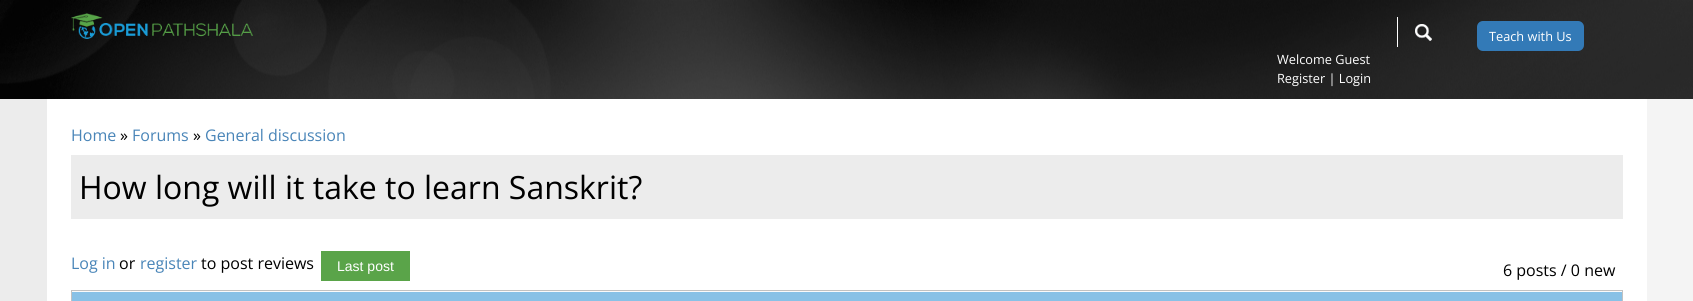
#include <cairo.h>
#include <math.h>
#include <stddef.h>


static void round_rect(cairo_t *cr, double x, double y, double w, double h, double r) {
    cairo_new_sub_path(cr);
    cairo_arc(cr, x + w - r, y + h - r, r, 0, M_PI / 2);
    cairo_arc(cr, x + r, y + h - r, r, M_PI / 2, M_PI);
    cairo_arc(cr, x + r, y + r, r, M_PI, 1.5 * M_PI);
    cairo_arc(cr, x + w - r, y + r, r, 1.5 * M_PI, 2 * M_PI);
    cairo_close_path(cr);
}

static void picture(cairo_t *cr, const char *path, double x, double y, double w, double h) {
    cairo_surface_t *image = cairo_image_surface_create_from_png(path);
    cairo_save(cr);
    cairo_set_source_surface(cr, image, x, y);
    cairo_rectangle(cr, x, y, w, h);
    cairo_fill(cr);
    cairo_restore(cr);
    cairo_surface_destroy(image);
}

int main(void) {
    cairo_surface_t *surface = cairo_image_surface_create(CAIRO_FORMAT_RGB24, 1693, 301);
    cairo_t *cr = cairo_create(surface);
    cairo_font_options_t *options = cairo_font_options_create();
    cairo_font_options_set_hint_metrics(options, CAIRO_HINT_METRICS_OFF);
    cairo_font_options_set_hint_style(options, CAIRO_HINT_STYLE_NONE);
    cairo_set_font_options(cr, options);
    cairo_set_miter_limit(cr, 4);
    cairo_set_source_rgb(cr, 0.957, 0.957, 0.957);
    cairo_paint(cr);
    picture(cr, "img1.png", 0, 0, 1693, 99);
    picture(cr, "img2.png", 71, 13, 182, 26);
    cairo_set_source_rgb(cr, 1, 1, 1);
    cairo_rectangle(cr, 1397, 17, 1, 30);
    cairo_fill(cr);
    picture(cr, "img3.png", 1415, 24, 17, 17);
    cairo_set_source_rgb(cr, 0.2, 0.478, 0.718);
    round_rect(cr, 1477, 21, 107, 30, 6);
    cairo_fill(cr);
    cairo_select_font_face(cr, "Open Sans", CAIRO_FONT_SLANT_NORMAL, CAIRO_FONT_WEIGHT_NORMAL);
    cairo_set_font_size(cr, 12.75);
    cairo_set_source_rgb(cr, 1, 1, 1);
    cairo_move_to(cr, 1489, 41);
    cairo_show_text(cr, "Teach with Us");
    cairo_move_to(cr, 1277, 64);
    cairo_show_text(cr, "Welcome Guest");
    cairo_move_to(cr, 1277, 83);
    cairo_show_text(cr, "Register | Login");
    cairo_set_source_rgb(cr, 0.925, 0.925, 0.922);
    cairo_rectangle(cr, 0, 99, 47, 202);
    cairo_fill(cr);
    cairo_set_source_rgb(cr, 1, 1, 1);
    cairo_rectangle(cr, 47, 99, 1600, 202);
    cairo_fill(cr);
    cairo_set_font_size(cr, 16);
    cairo_set_source_rgb(cr, 0.286, 0.522, 0.722);
    cairo_move_to(cr, 71, 141);
    cairo_show_text(cr, "Home");
    cairo_set_source_rgb(cr, 0, 0, 0);
    cairo_move_to(cr, 120, 141);
    cairo_show_text(cr, "»");
    cairo_set_source_rgb(cr, 0.286, 0.522, 0.722);
    cairo_move_to(cr, 132, 141);
    cairo_show_text(cr, "Forums");
    cairo_set_source_rgb(cr, 0, 0, 0);
    cairo_move_to(cr, 193, 141);
    cairo_show_text(cr, "»");
    cairo_set_source_rgb(cr, 0.286, 0.522, 0.722);
    cairo_move_to(cr, 205, 141);
    cairo_show_text(cr, "General discussion");
    cairo_set_source_rgb(cr, 0.925, 0.925, 0.922);
    cairo_rectangle(cr, 71, 155, 1552, 64);
    cairo_fill(cr);
    cairo_set_font_size(cr, 32);
    cairo_set_source_rgb(cr, 0, 0, 0);
    cairo_move_to(cr, 79, 199);
    cairo_show_text(cr, "How long will it take to learn Sanskrit?");
    cairo_set_font_size(cr, 16);
    cairo_set_source_rgb(cr, 0.286, 0.522, 0.722);
    cairo_move_to(cr, 71, 269);
    cairo_show_text(cr, "Log in");
    cairo_set_source_rgb(cr, 0, 0, 0);
    cairo_move_to(cr, 119, 269);
    cairo_show_text(cr, "or");
    cairo_set_source_rgb(cr, 0.286, 0.522, 0.722);
    cairo_move_to(cr, 140, 269);
    cairo_show_text(cr, "register");
    cairo_set_source_rgb(cr, 0, 0, 0);
    cairo_move_to(cr, 201, 269);
    cairo_show_text(cr, "to post reviews");
    cairo_set_source_rgb(cr, 0.353, 0.643, 0.286);
    cairo_rectangle(cr, 321, 251, 89, 30);
    cairo_fill(cr);
    cairo_select_font_face(cr, "Liberation Sans", CAIRO_FONT_SLANT_NORMAL, CAIRO_FONT_WEIGHT_NORMAL);
    cairo_set_font_size(cr, 14);
    cairo_set_source_rgb(cr, 1, 1, 1);
    cairo_move_to(cr, 337, 271);
    cairo_show_text(cr, "Last post");
    cairo_select_font_face(cr, "Open Sans", CAIRO_FONT_SLANT_NORMAL, CAIRO_FONT_WEIGHT_NORMAL);
    cairo_set_font_size(cr, 16);
    cairo_set_source_rgb(cr, 0, 0, 0);
    cairo_move_to(cr, 1503, 276);
    cairo_show_text(cr, "6 posts / 0 new");
    cairo_rectangle(cr, 71.5, 290.5, 1551, 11);
    cairo_set_source_rgb(cr, 0.757, 0.757, 0.757);
    cairo_set_line_width(cr, 1);
    cairo_stroke(cr);
    cairo_set_source_rgb(cr, 0.533, 0.757, 0.902);
    cairo_rectangle(cr, 72, 292, 1550, 9);
    cairo_fill(cr);
    cairo_set_source_rgb(cr, 0.98, 0.98, 0.98);
    cairo_rectangle(cr, 72, 291, 1550, 1);
    cairo_fill(cr);
    cairo_surface_write_to_png(surface, "page.png");
    cairo_font_options_destroy(options);
    cairo_destroy(cr);
    cairo_surface_destroy(surface);
    return 0;
}
